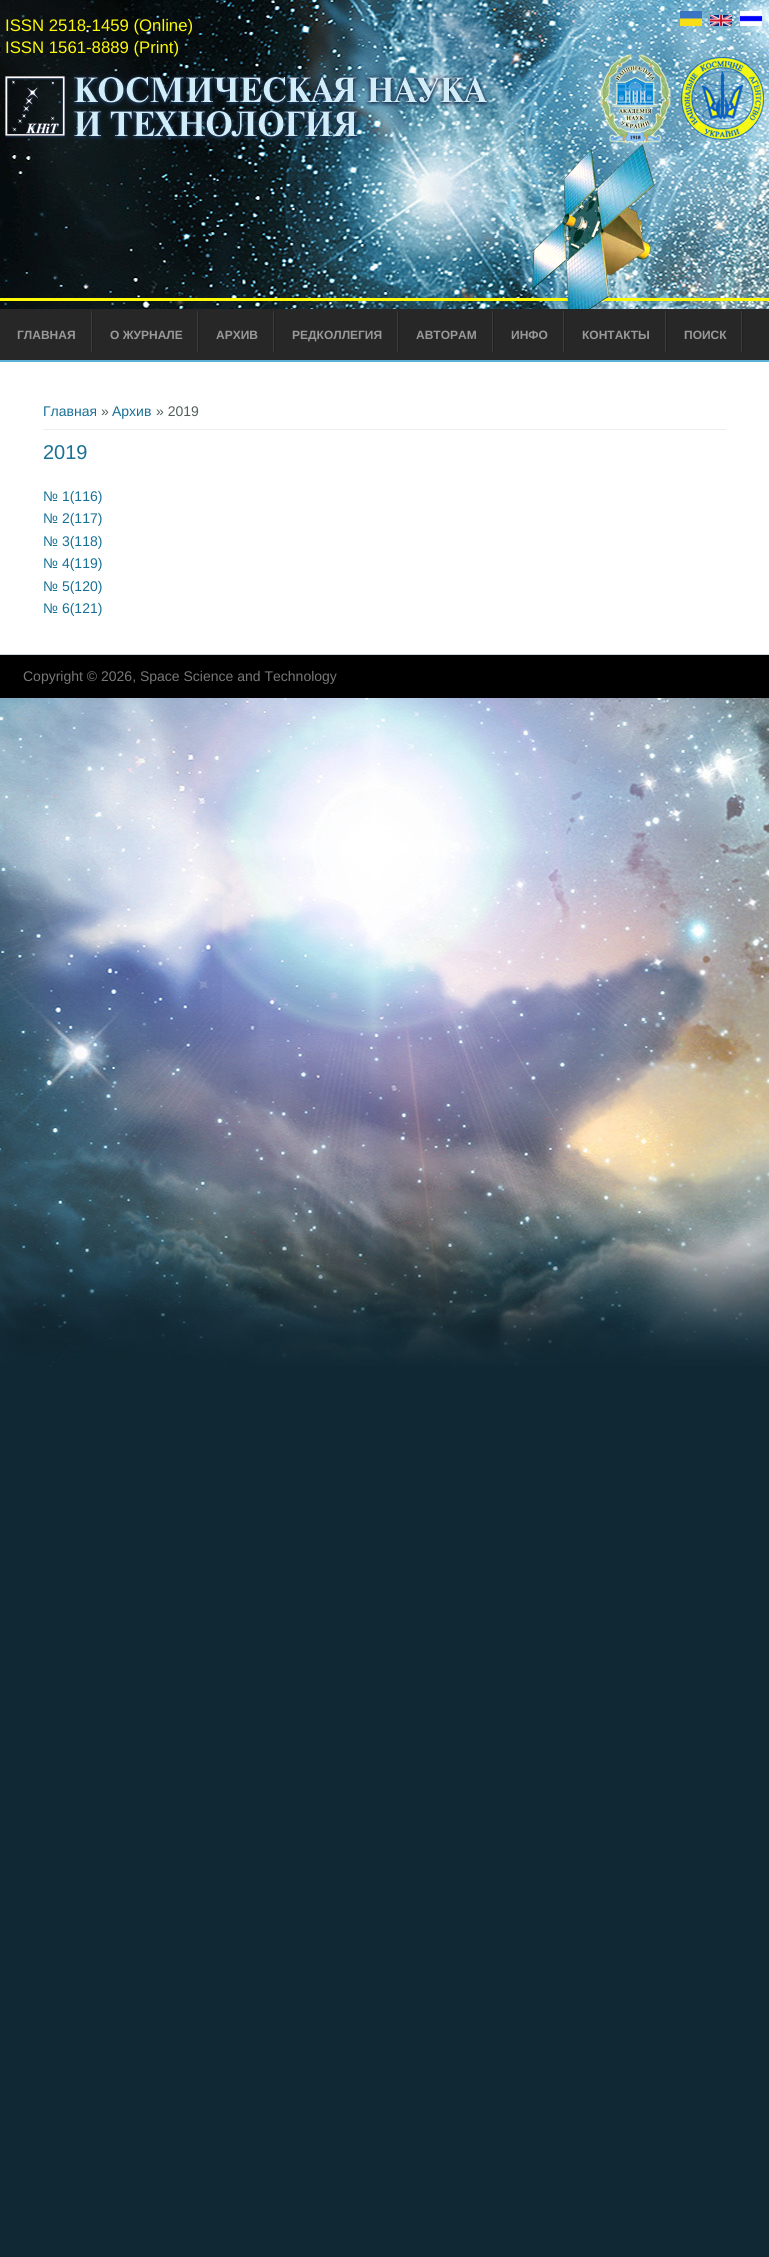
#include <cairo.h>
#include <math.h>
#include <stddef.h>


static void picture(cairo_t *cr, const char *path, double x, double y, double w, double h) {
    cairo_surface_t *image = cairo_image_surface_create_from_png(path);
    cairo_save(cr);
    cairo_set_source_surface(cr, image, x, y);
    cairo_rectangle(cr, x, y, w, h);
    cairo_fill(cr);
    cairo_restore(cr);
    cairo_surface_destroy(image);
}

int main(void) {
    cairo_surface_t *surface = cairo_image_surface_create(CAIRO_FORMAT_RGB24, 769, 2257);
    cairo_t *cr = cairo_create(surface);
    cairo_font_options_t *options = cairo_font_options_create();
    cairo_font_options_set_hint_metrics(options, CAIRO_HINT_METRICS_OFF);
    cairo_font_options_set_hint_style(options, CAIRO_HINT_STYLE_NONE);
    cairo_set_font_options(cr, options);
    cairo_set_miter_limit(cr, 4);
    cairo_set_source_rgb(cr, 0.063, 0.157, 0.204);
    cairo_paint(cr);
    picture(cr, "img1.png", 0, 0, 769, 1366);
    cairo_select_font_face(cr, "Liberation Sans", CAIRO_FONT_SLANT_NORMAL, CAIRO_FONT_WEIGHT_NORMAL);
    cairo_set_font_size(cr, 16.75);
    cairo_set_source_rgb(cr, 0.992, 0.973, 0.035);
    cairo_move_to(cr, 5, 31);
    cairo_show_text(cr, "ISSN 2518-1459 (Online)");
    cairo_move_to(cr, 5, 53);
    cairo_show_text(cr, "ISSN 1561-8889 (Print)");
    picture(cr, "img2.png", 5, 74, 484, 67);
    picture(cr, "img3.png", 680, 11, 22, 15);
    picture(cr, "img4.png", 710, 15, 22, 11);
    picture(cr, "img5.png", 740, 11, 22, 15);
    picture(cr, "img6.png", 600, 54, 71, 90);
    picture(cr, "img7.png", 681, 57, 83, 83);
    cairo_rectangle(cr, 0, 298, 769, 3);
    cairo_fill(cr);
    picture(cr, "img8.png", 529, 144, 126, 165);
    cairo_set_source_rgb(cr, 0.153, 0.153, 0.153);
    cairo_rectangle(cr, 0, 309, 769, 51);
    cairo_fill(cr);
    cairo_set_source_rgb(cr, 0.357, 0.694, 0.839);
    cairo_rectangle(cr, 0, 360, 769, 2);
    cairo_fill(cr);
    picture(cr, "img9.png", 91, 311, 2, 41);
    cairo_select_font_face(cr, "Liberation Sans", CAIRO_FONT_SLANT_NORMAL, CAIRO_FONT_WEIGHT_BOLD);
    cairo_set_font_size(cr, 12);
    cairo_set_source_rgb(cr, 0.6, 0.6, 0.6);
    cairo_move_to(cr, 17, 339);
    cairo_show_text(cr, "ГЛАВНАЯ");
    picture(cr, "img9.png", 197, 311, 2, 41);
    cairo_move_to(cr, 110, 339);
    cairo_show_text(cr, "О ЖУРНАЛЕ");
    picture(cr, "img9.png", 273, 311, 2, 41);
    cairo_move_to(cr, 216, 339);
    cairo_show_text(cr, "АРХИВ");
    picture(cr, "img9.png", 397, 311, 2, 41);
    cairo_move_to(cr, 292, 339);
    cairo_show_text(cr, "РЕДКОЛЛЕГИЯ");
    picture(cr, "img9.png", 492, 311, 2, 41);
    cairo_move_to(cr, 416, 339);
    cairo_show_text(cr, "АВТОРАМ");
    picture(cr, "img9.png", 563, 311, 2, 41);
    cairo_move_to(cr, 511, 339);
    cairo_show_text(cr, "ИНФО");
    picture(cr, "img9.png", 665, 311, 2, 41);
    cairo_move_to(cr, 582, 339);
    cairo_show_text(cr, "КОНТАКТЫ");
    picture(cr, "img9.png", 741, 311, 2, 41);
    cairo_move_to(cr, 684, 339);
    cairo_show_text(cr, "ПОИСК");
    cairo_set_source_rgb(cr, 1, 1, 1);
    cairo_rectangle(cr, 0, 362, 769, 292);
    cairo_fill(cr);
    cairo_set_source_rgb(cr, 0.933, 0.933, 0.933);
    cairo_rectangle(cr, 43, 429, 683, 1);
    cairo_fill(cr);
    cairo_select_font_face(cr, "Liberation Sans", CAIRO_FONT_SLANT_NORMAL, CAIRO_FONT_WEIGHT_NORMAL);
    cairo_set_font_size(cr, 14);
    cairo_set_source_rgb(cr, 0.094, 0.439, 0.584);
    cairo_move_to(cr, 43, 416);
    cairo_show_text(cr, "Главная");
    cairo_set_source_rgb(cr, 0.318, 0.373, 0.361);
    cairo_move_to(cr, 101, 416);
    cairo_show_text(cr, "»");
    cairo_set_source_rgb(cr, 0.094, 0.439, 0.584);
    cairo_move_to(cr, 112, 416);
    cairo_show_text(cr, "Архив");
    cairo_set_source_rgb(cr, 0.318, 0.373, 0.361);
    cairo_move_to(cr, 156, 416);
    cairo_show_text(cr, "» 2019");
    cairo_set_font_size(cr, 20);
    cairo_set_source_rgb(cr, 0.094, 0.439, 0.584);
    cairo_move_to(cr, 43, 459);
    cairo_show_text(cr, "2019");
    cairo_set_font_size(cr, 14);
    cairo_move_to(cr, 43, 501);
    cairo_show_text(cr, "№ 1(116)");
    cairo_move_to(cr, 43, 523);
    cairo_show_text(cr, "№ 2(117)");
    cairo_move_to(cr, 43, 546);
    cairo_show_text(cr, "№ 3(118)");
    cairo_move_to(cr, 43, 568);
    cairo_show_text(cr, "№ 4(119)");
    cairo_move_to(cr, 43, 591);
    cairo_show_text(cr, "№ 5(120)");
    cairo_move_to(cr, 43, 613);
    cairo_show_text(cr, "№ 6(121)");
    cairo_set_source_rgb(cr, 0.812, 0.843, 0.859);
    cairo_rectangle(cr, 0, 654, 769, 1);
    cairo_fill(cr);
    cairo_set_source_rgb(cr, 0, 0, 0);
    cairo_rectangle(cr, 0, 655, 769, 43);
    cairo_fill(cr);
    cairo_set_source_rgb(cr, 0.467, 0.467, 0.467);
    cairo_move_to(cr, 23, 681);
    cairo_show_text(cr, "Copyright © 2026, Space Science and Technology");
    cairo_surface_write_to_png(surface, "page.png");
    cairo_font_options_destroy(options);
    cairo_destroy(cr);
    cairo_surface_destroy(surface);
    return 0;
}
